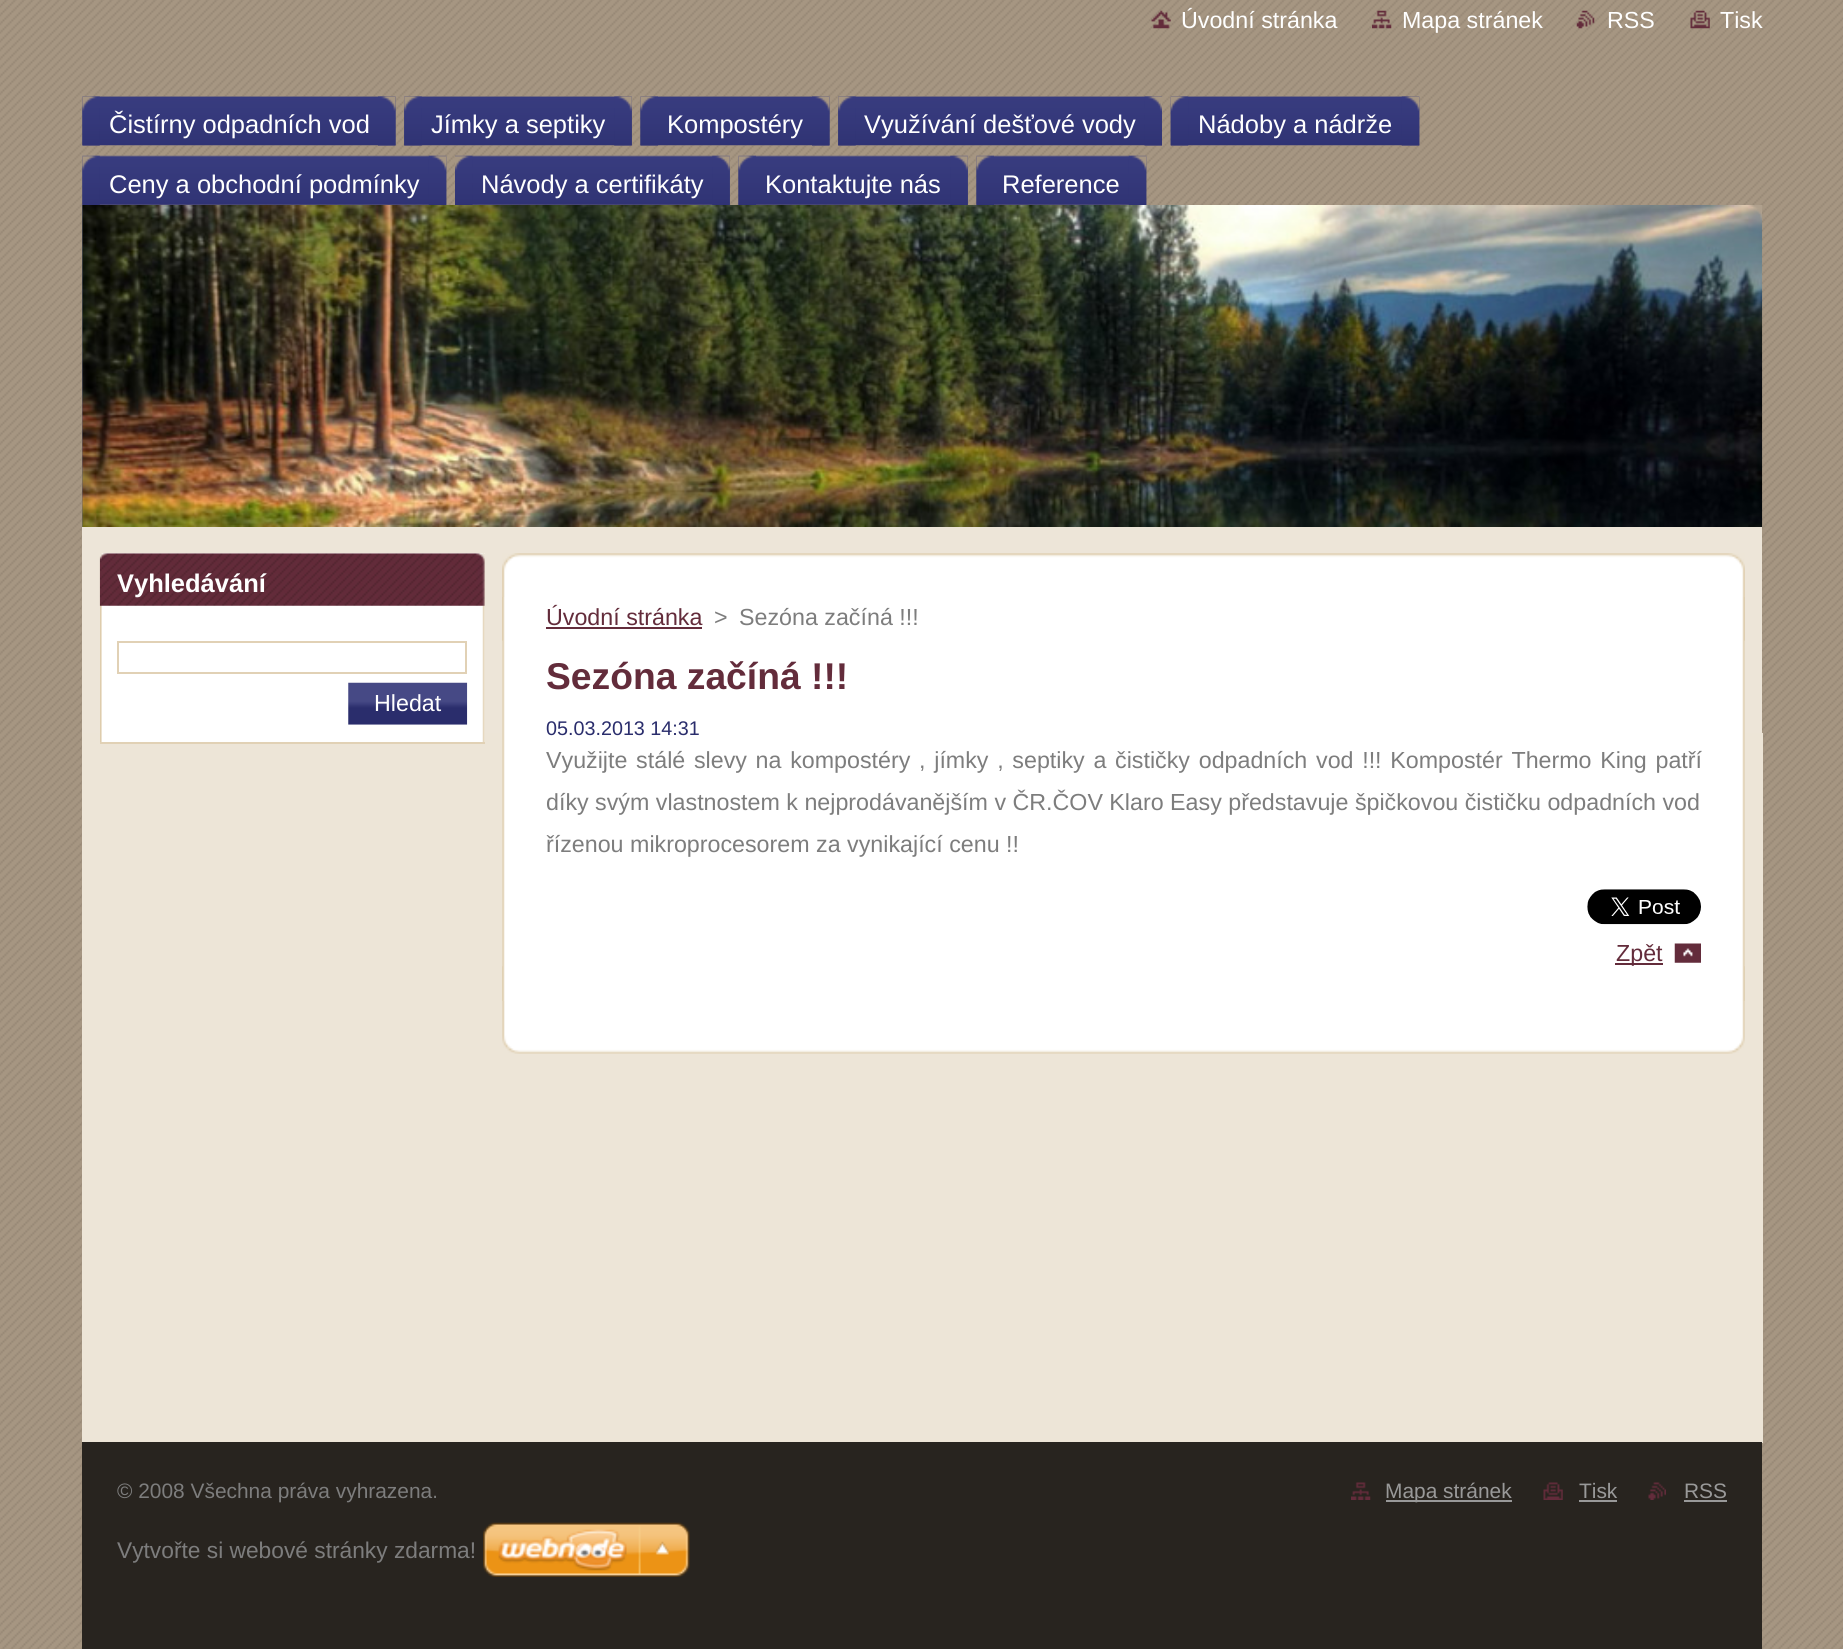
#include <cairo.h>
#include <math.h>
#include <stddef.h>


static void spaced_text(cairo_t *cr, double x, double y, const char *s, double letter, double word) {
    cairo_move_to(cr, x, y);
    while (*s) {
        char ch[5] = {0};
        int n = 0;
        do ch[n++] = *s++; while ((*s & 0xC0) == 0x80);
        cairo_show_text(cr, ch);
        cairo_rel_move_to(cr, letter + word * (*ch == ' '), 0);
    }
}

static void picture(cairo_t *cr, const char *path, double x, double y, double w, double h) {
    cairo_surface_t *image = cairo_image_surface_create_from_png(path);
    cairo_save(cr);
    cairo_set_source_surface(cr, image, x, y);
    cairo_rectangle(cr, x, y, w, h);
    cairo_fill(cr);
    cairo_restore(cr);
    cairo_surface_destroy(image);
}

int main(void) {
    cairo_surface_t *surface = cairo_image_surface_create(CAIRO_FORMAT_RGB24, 1843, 1649);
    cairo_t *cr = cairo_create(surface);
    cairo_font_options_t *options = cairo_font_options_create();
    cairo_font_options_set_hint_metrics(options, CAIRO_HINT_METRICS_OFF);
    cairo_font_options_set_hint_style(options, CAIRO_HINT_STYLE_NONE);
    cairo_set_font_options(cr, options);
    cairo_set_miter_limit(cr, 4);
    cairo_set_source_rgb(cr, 1, 1, 1);
    cairo_paint(cr);
    picture(cr, "img1.png", 0, 0, 1843, 1649);
    cairo_set_source_rgb(cr, 0.929, 0.898, 0.843);
    cairo_rectangle(cr, 82, 733, 1681, 710);
    cairo_fill(cr);
    picture(cr, "img2.png", 1151, 10, 20, 19);
    cairo_select_font_face(cr, "Liberation Sans", CAIRO_FONT_SLANT_NORMAL, CAIRO_FONT_WEIGHT_NORMAL);
    cairo_set_font_size(cr, 23.25);
    cairo_set_source_rgb(cr, 1, 1, 1);
    cairo_move_to(cr, 1181, 28);
    cairo_show_text(cr, "Úvodní stránka");
    picture(cr, "img3.png", 1372, 10, 20, 19);
    cairo_move_to(cr, 1402, 28);
    cairo_show_text(cr, "Mapa stránek");
    picture(cr, "img4.png", 1576, 10, 19, 19);
    cairo_move_to(cr, 1607, 28);
    cairo_show_text(cr, "RSS");
    picture(cr, "img5.png", 1690, 10, 20, 19);
    cairo_move_to(cr, 1720, 28);
    cairo_show_text(cr, "Tisk");
    picture(cr, "img6.png", 82, 96, 314, 50);
    picture(cr, "img7.png", 82, 96, 18, 50);
    picture(cr, "img8.png", 378, 96, 18, 50);
    cairo_set_font_size(cr, 25.5);
    cairo_move_to(cr, 109, 133);
    cairo_show_text(cr, "Čistírny odpadních vod");
    picture(cr, "img9.png", 404, 96, 228, 50);
    picture(cr, "img10.png", 404, 96, 18, 50);
    picture(cr, "img11.png", 614, 96, 18, 50);
    cairo_move_to(cr, 431, 133);
    cairo_show_text(cr, "Jímky a septiky");
    picture(cr, "img12.png", 640, 96, 190, 50);
    picture(cr, "img13.png", 640, 96, 18, 50);
    picture(cr, "img14.png", 812, 96, 18, 50);
    cairo_move_to(cr, 667, 133);
    cairo_show_text(cr, "Kompostéry");
    picture(cr, "img15.png", 838, 96, 324, 50);
    picture(cr, "img16.png", 838, 96, 18, 50);
    picture(cr, "img17.png", 1144, 96, 18, 50);
    cairo_move_to(cr, 864, 133);
    cairo_show_text(cr, "Využívání dešťové vody");
    picture(cr, "img18.png", 1170, 96, 250, 50);
    picture(cr, "img19.png", 1170, 96, 19, 50);
    picture(cr, "img20.png", 1401, 96, 19, 50);
    cairo_move_to(cr, 1198, 133);
    cairo_show_text(cr, "Nádoby a nádrže");
    picture(cr, "img21.png", 82, 155, 365, 50);
    picture(cr, "img22.png", 82, 155, 18, 50);
    picture(cr, "img23.png", 428, 155, 19, 50);
    cairo_move_to(cr, 109, 193);
    cairo_show_text(cr, "Ceny a obchodní podmínky");
    picture(cr, "img24.png", 455, 155, 275, 50);
    picture(cr, "img25.png", 455, 155, 18, 50);
    picture(cr, "img26.png", 712, 155, 18, 50);
    cairo_move_to(cr, 481, 193);
    cairo_show_text(cr, "Návody a certifikáty");
    picture(cr, "img27.png", 738, 155, 230, 50);
    picture(cr, "img28.png", 738, 155, 18, 50);
    picture(cr, "img29.png", 950, 155, 18, 50);
    cairo_move_to(cr, 765, 193);
    cairo_show_text(cr, "Kontaktujte nás");
    picture(cr, "img30.png", 976, 155, 171, 50);
    picture(cr, "img31.png", 976, 155, 18, 50);
    picture(cr, "img23.png", 1128, 155, 19, 50);
    cairo_move_to(cr, 1002, 193);
    cairo_show_text(cr, "Reference");
    cairo_set_source_rgb(cr, 0.388, 0.392, 0.475);
    cairo_rectangle(cr, 82, 205, 1, 322);
    cairo_fill(cr);
    picture(cr, "img32.png", 82, 205, 1681, 322);
    picture(cr, "img33.png", 1748, 205, 14, 15);
    cairo_set_source_rgb(cr, 0.929, 0.898, 0.847);
    cairo_rectangle(cr, 82, 527, 1680, 206);
    cairo_fill(cr);
    cairo_set_source_rgb(cr, 1, 1, 1);
    cairo_rectangle(cr, 100, 553, 385, 189);
    cairo_fill(cr);
    picture(cr, "img34.png", 100, 553, 385, 189);
    cairo_set_source_rgb(cr, 0.882, 0.82, 0.71);
    cairo_rectangle(cr, 100, 742, 385, 2);
    cairo_fill(cr);
    picture(cr, "img35.png", 99, 553, 386, 53);
    cairo_select_font_face(cr, "Liberation Sans", CAIRO_FONT_SLANT_NORMAL, CAIRO_FONT_WEIGHT_BOLD);
    cairo_set_source_rgb(cr, 1, 1, 1);
    cairo_move_to(cr, 117, 592);
    cairo_show_text(cr, "Vyhledávání");
    cairo_rectangle(cr, 118, 642, 348, 31);
    cairo_set_source_rgb(cr, 0.882, 0.82, 0.71);
    cairo_stroke(cr);
    picture(cr, "img36.png", 348, 682, 120, 43);
    cairo_select_font_face(cr, "Liberation Sans", CAIRO_FONT_SLANT_NORMAL, CAIRO_FONT_WEIGHT_NORMAL);
    cairo_set_font_size(cr, 23.25);
    cairo_set_source_rgb(cr, 1, 1, 1);
    cairo_move_to(cr, 374, 711);
    cairo_show_text(cr, "Hledat");
    picture(cr, "img37.png", 502, 553, 1243, 88);
    picture(cr, "img38.png", 502, 966, 1243, 88);
    picture(cr, "img39.png", 502, 597, 1243, 404);
    cairo_set_source_rgb(cr, 0.388, 0.173, 0.231);
    cairo_move_to(cr, 546, 625);
    cairo_show_text(cr, "Úvodní stránka");
    cairo_rectangle(cr, 546, 627, 156, 2);
    cairo_fill(cr);
    cairo_set_source_rgb(cr, 0.49, 0.49, 0.49);
    cairo_move_to(cr, 714, 625);
    cairo_show_text(cr, ">");
    cairo_move_to(cr, 739, 625);
    cairo_show_text(cr, "Sezóna začíná !!!");
    cairo_select_font_face(cr, "Liberation Sans", CAIRO_FONT_SLANT_NORMAL, CAIRO_FONT_WEIGHT_BOLD);
    cairo_set_font_size(cr, 37.25);
    cairo_set_source_rgb(cr, 0.388, 0.173, 0.231);
    cairo_move_to(cr, 546, 689);
    cairo_show_text(cr, "Sezóna začíná !!!");
    cairo_select_font_face(cr, "Liberation Sans", CAIRO_FONT_SLANT_NORMAL, CAIRO_FONT_WEIGHT_NORMAL);
    cairo_set_font_size(cr, 19.75);
    cairo_set_source_rgb(cr, 0.165, 0.176, 0.424);
    cairo_move_to(cr, 546, 735);
    cairo_show_text(cr, "05.03.2013 14:31");
    cairo_set_font_size(cr, 23.25);
    cairo_set_source_rgb(cr, 0.49, 0.49, 0.49);
    spaced_text(cr, 546, 768, "Využijte stálé slevy na kompostéry , jímky , septiky a čističky odpadních vod !!! Kompostér Thermo King patří", 0, 2.25);
    cairo_move_to(cr, 546, 810);
    cairo_show_text(cr, "díky svým vlastnostem k nejprodávanějším v ČR.ČOV Klaro Easy představuje špičkovou čističku odpadních vod");
    cairo_move_to(cr, 546, 852);
    cairo_show_text(cr, "řízenou mikroprocesorem za vynikající cenu !!");
    picture(cr, "img40.png", 1587, 889, 114, 36);
    picture(cr, "img41.png", 1674, 943, 27, 20);
    cairo_set_source_rgb(cr, 0.388, 0.173, 0.231);
    cairo_rectangle(cr, 1615, 963, 48, 2);
    cairo_fill(cr);
    cairo_move_to(cr, 1616, 961);
    cairo_show_text(cr, "Zpět");
    cairo_set_source_rgb(cr, 0.157, 0.141, 0.122);
    cairo_rectangle(cr, 82, 1442, 1680, 207);
    cairo_fill(cr);
    cairo_set_font_size(cr, 20.9);
    cairo_set_source_rgb(cr, 0.49, 0.49, 0.49);
    cairo_move_to(cr, 117, 1498);
    cairo_show_text(cr, "© 2008 Všechna práva vyhrazena.");
    picture(cr, "img42.png", 1351, 1482, 20, 18);
    cairo_set_source_rgb(cr, 0.6, 0.6, 0.6);
    cairo_rectangle(cr, 1386, 1500, 126, 2);
    cairo_fill(cr);
    cairo_move_to(cr, 1385, 1498);
    cairo_show_text(cr, "Mapa stránek");
    picture(cr, "img43.png", 1543, 1482, 20, 18);
    cairo_move_to(cr, 1579, 1498);
    cairo_show_text(cr, "Tisk");
    cairo_rectangle(cr, 1579, 1500, 38, 2);
    cairo_fill(cr);
    picture(cr, "img44.png", 1648, 1482, 18, 18);
    cairo_move_to(cr, 1684, 1498);
    cairo_show_text(cr, "RSS");
    cairo_rectangle(cr, 1684, 1500, 43, 2);
    cairo_fill(cr);
    cairo_set_font_size(cr, 22.75);
    cairo_set_source_rgb(cr, 0.49, 0.49, 0.49);
    cairo_move_to(cr, 117, 1558);
    cairo_show_text(cr, "Vytvořte si webové stránky zdarma!");
    picture(cr, "img45.png", 483, 1522, 207, 55);
    cairo_surface_write_to_png(surface, "page.png");
    cairo_font_options_destroy(options);
    cairo_destroy(cr);
    cairo_surface_destroy(surface);
    return 0;
}
